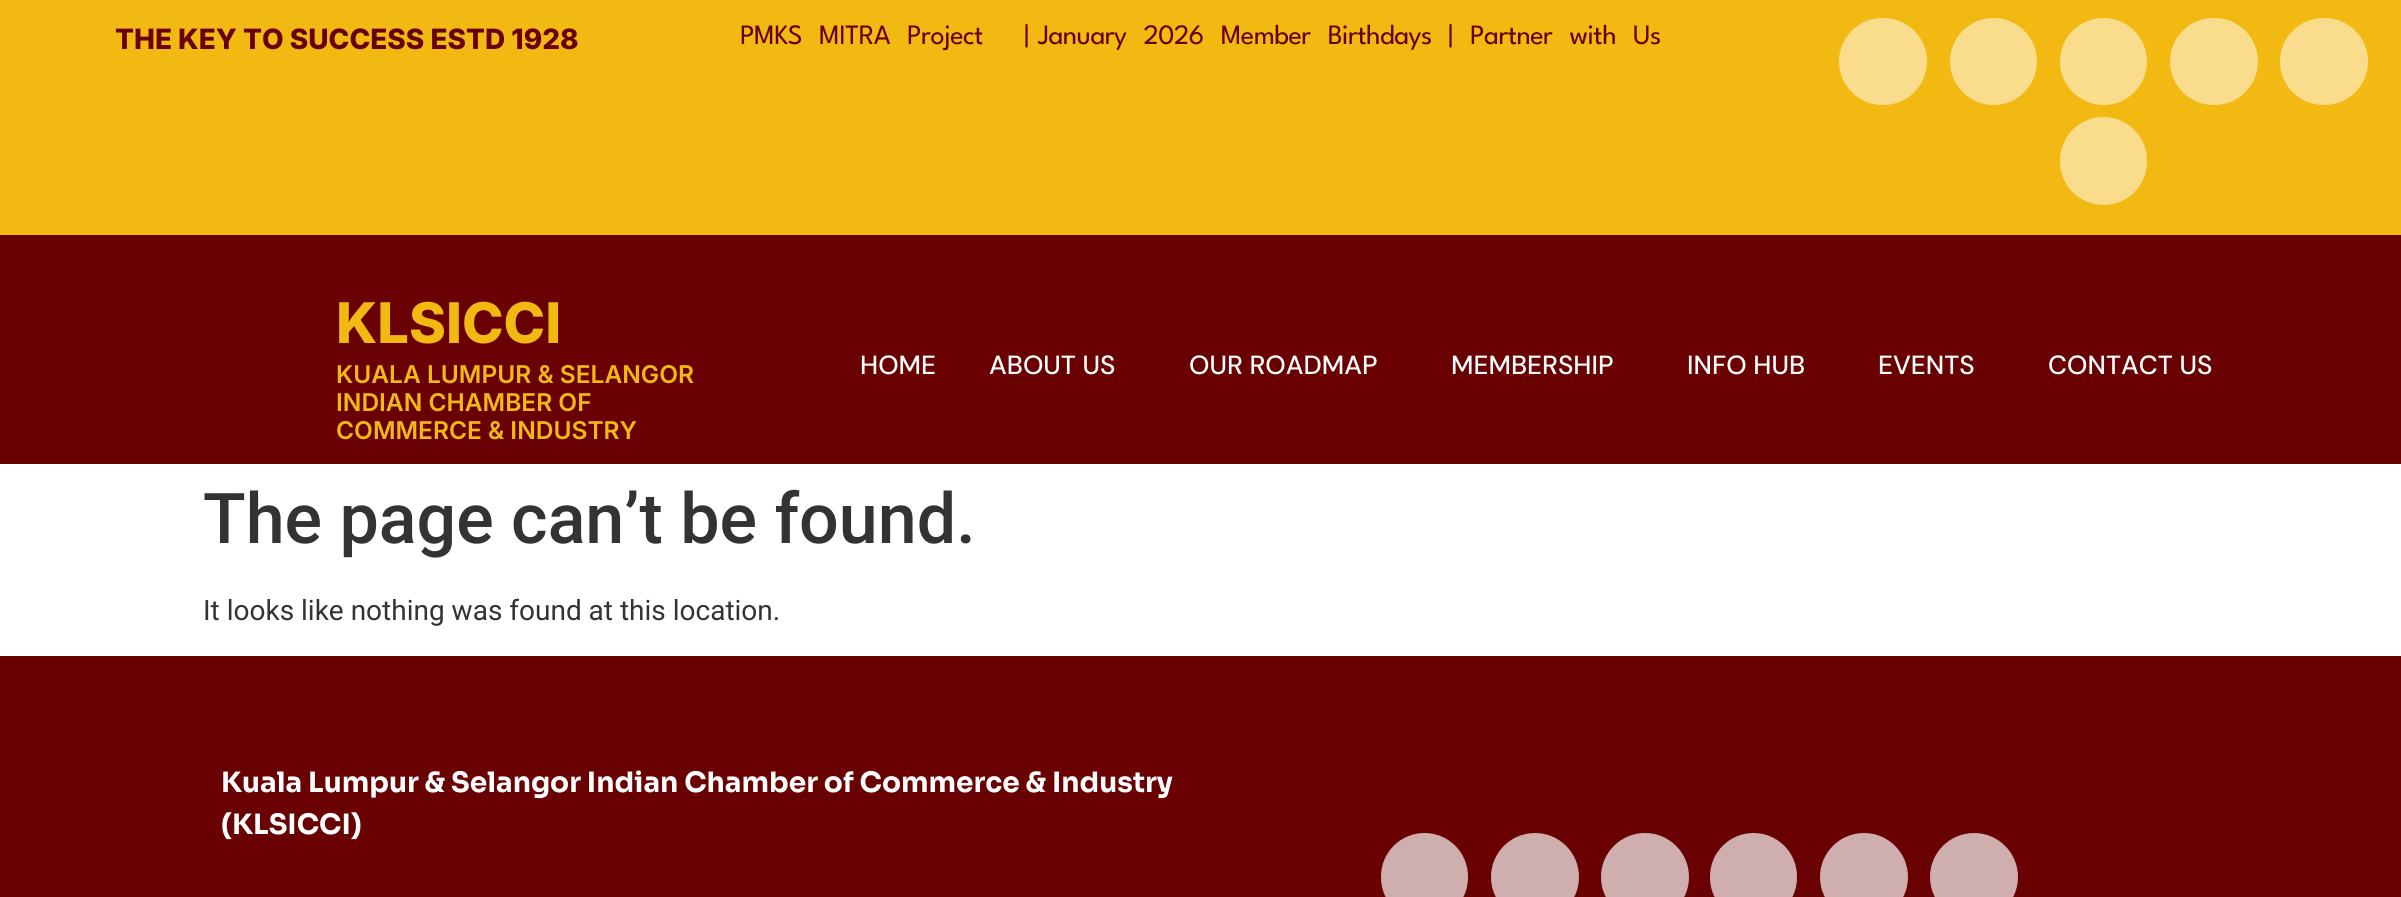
#include <cairo.h>
#include <math.h>
#include <stddef.h>


static void spaced_text(cairo_t *cr, double x, double y, const char *s, double letter, double word) {
    cairo_move_to(cr, x, y);
    while (*s) {
        char ch[5] = {0};
        int n = 0;
        do ch[n++] = *s++; while ((*s & 0xC0) == 0x80);
        cairo_show_text(cr, ch);
        cairo_rel_move_to(cr, letter + word * (*ch == ' '), 0);
    }
}

static void round_rect(cairo_t *cr, double x, double y, double w, double h, double r) {
    cairo_new_sub_path(cr);
    cairo_arc(cr, x + w - r, y + h - r, r, 0, M_PI / 2);
    cairo_arc(cr, x + r, y + h - r, r, M_PI / 2, M_PI);
    cairo_arc(cr, x + r, y + r, r, M_PI, 1.5 * M_PI);
    cairo_arc(cr, x + w - r, y + r, r, 1.5 * M_PI, 2 * M_PI);
    cairo_close_path(cr);
}

int main(void) {
    cairo_surface_t *surface = cairo_image_surface_create(CAIRO_FORMAT_RGB24, 2401, 897);
    cairo_t *cr = cairo_create(surface);
    cairo_font_options_t *options = cairo_font_options_create();
    cairo_font_options_set_hint_metrics(options, CAIRO_HINT_METRICS_OFF);
    cairo_font_options_set_hint_style(options, CAIRO_HINT_STYLE_NONE);
    cairo_set_font_options(cr, options);
    cairo_set_miter_limit(cr, 4);
    cairo_set_source_rgb(cr, 1, 1, 1);
    cairo_paint(cr);
    cairo_set_source_rgb(cr, 0.949, 0.725, 0.071);
    cairo_rectangle(cr, 0, 0, 2401, 235);
    cairo_fill(cr);
    cairo_select_font_face(cr, "Inter ExtraBold", CAIRO_FONT_SLANT_NORMAL, CAIRO_FONT_WEIGHT_NORMAL);
    cairo_set_font_size(cr, 28);
    cairo_set_source_rgb(cr, 0.412, 0.004, 0.008);
    cairo_move_to(cr, 115, 49);
    cairo_show_text(cr, "THE KEY TO SUCCESS ESTD 1928");
    cairo_select_font_face(cr, "League Spartan", CAIRO_FONT_SLANT_NORMAL, CAIRO_FONT_WEIGHT_NORMAL);
    spaced_text(cr, 740, 44, "PMKS MITRA Project", -0.5, 10.5);
    spaced_text(cr, 1024, 44, "|", -0.5, 0);
    spaced_text(cr, 1038, 44, "January 2026 Member Birthdays", -0.5, 10.5);
    spaced_text(cr, 1448, 44, "|", -0.5, 0);
    spaced_text(cr, 1470, 44, "Partner with Us", -0.5, 10.5);
    cairo_set_source_rgb(cr, 0.976, 0.867, 0.553);
    round_rect(cr, 1839, 18, 88, 87, 43.5);
    cairo_fill(cr);
    cairo_arc(cr, 1993.5, 61.5, 43.5, 0, 2 * M_PI);
    cairo_fill(cr);
    cairo_arc(cr, 2103.5, 61.5, 43.5, 0, 2 * M_PI);
    cairo_fill(cr);
    round_rect(cr, 2170, 18, 88, 87, 43.5);
    cairo_fill(cr);
    round_rect(cr, 2280, 18, 88, 87, 43.5);
    cairo_fill(cr);
    round_rect(cr, 2060, 117, 87, 88, 43.5);
    cairo_fill(cr);
    cairo_set_source_rgb(cr, 0.412, 0.004, 0.008);
    cairo_rectangle(cr, 0, 235, 2401, 229);
    cairo_fill(cr);
    cairo_select_font_face(cr, "Inter ExtraBold", CAIRO_FONT_SLANT_NORMAL, CAIRO_FONT_WEIGHT_NORMAL);
    cairo_set_font_size(cr, 56);
    cairo_set_source_rgb(cr, 0.949, 0.725, 0.071);
    cairo_move_to(cr, 336, 343);
    cairo_show_text(cr, "KLSICCI");
    cairo_select_font_face(cr, "Inter SemiBold", CAIRO_FONT_SLANT_NORMAL, CAIRO_FONT_WEIGHT_NORMAL);
    cairo_set_font_size(cr, 24.5);
    cairo_move_to(cr, 336, 383);
    cairo_show_text(cr, "KUALA LUMPUR & SELANGOR");
    cairo_move_to(cr, 336, 411);
    cairo_show_text(cr, "INDIAN CHAMBER OF");
    cairo_move_to(cr, 336, 439);
    cairo_show_text(cr, "COMMERCE & INDUSTRY");
    cairo_select_font_face(cr, "DM Sans Medium", CAIRO_FONT_SLANT_NORMAL, CAIRO_FONT_WEIGHT_NORMAL);
    cairo_set_font_size(cr, 26.25);
    cairo_set_source_rgb(cr, 1, 1, 1);
    cairo_move_to(cr, 860, 374);
    cairo_show_text(cr, "HOME");
    cairo_move_to(cr, 989, 374);
    cairo_show_text(cr, "ABOUT US");
    cairo_move_to(cr, 1189, 374);
    cairo_show_text(cr, "OUR ROADMAP");
    cairo_move_to(cr, 1451, 374);
    cairo_show_text(cr, "MEMBERSHIP");
    cairo_move_to(cr, 1687, 374);
    cairo_show_text(cr, "INFO HUB");
    cairo_move_to(cr, 1878, 374);
    cairo_show_text(cr, "EVENTS");
    cairo_move_to(cr, 2048, 374);
    cairo_show_text(cr, "CONTACT US");
    cairo_select_font_face(cr, "Roboto Medium", CAIRO_FONT_SLANT_NORMAL, CAIRO_FONT_WEIGHT_NORMAL);
    cairo_set_font_size(cr, 70);
    cairo_set_source_rgb(cr, 0.2, 0.2, 0.2);
    cairo_move_to(cr, 203, 543);
    cairo_show_text(cr, "The page can’t be found.");
    cairo_select_font_face(cr, "Roboto", CAIRO_FONT_SLANT_NORMAL, CAIRO_FONT_WEIGHT_NORMAL);
    cairo_set_font_size(cr, 28);
    cairo_move_to(cr, 203, 620);
    cairo_show_text(cr, "It looks like nothing was found at this location.");
    cairo_set_source_rgb(cr, 0.412, 0.004, 0.008);
    cairo_rectangle(cr, 0, 656, 2401, 241);
    cairo_fill(cr);
    cairo_select_font_face(cr, "Sora", CAIRO_FONT_SLANT_NORMAL, CAIRO_FONT_WEIGHT_BOLD);
    cairo_set_source_rgb(cr, 1, 1, 1);
    cairo_move_to(cr, 221, 792);
    cairo_show_text(cr, "Kuala Lumpur & Selangor Indian Chamber of Commerce & Industry");
    cairo_move_to(cr, 221, 834);
    cairo_show_text(cr, "(KLSICCI)");
    cairo_set_source_rgb(cr, 0.812, 0.682, 0.682);
    round_rect(cr, 1381, 833, 87, 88, 43.5);
    cairo_fill(cr);
    cairo_arc(cr, 1535, 877, 44, 0, 2 * M_PI);
    cairo_fill(cr);
    cairo_arc(cr, 1645, 877, 44, 0, 2 * M_PI);
    cairo_fill(cr);
    round_rect(cr, 1710, 833, 87, 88, 43.5);
    cairo_fill(cr);
    cairo_arc(cr, 1864, 877, 44, 0, 2 * M_PI);
    cairo_fill(cr);
    cairo_arc(cr, 1974, 877, 44, 0, 2 * M_PI);
    cairo_fill(cr);
    cairo_surface_write_to_png(surface, "page.png");
    cairo_font_options_destroy(options);
    cairo_destroy(cr);
    cairo_surface_destroy(surface);
    return 0;
}
